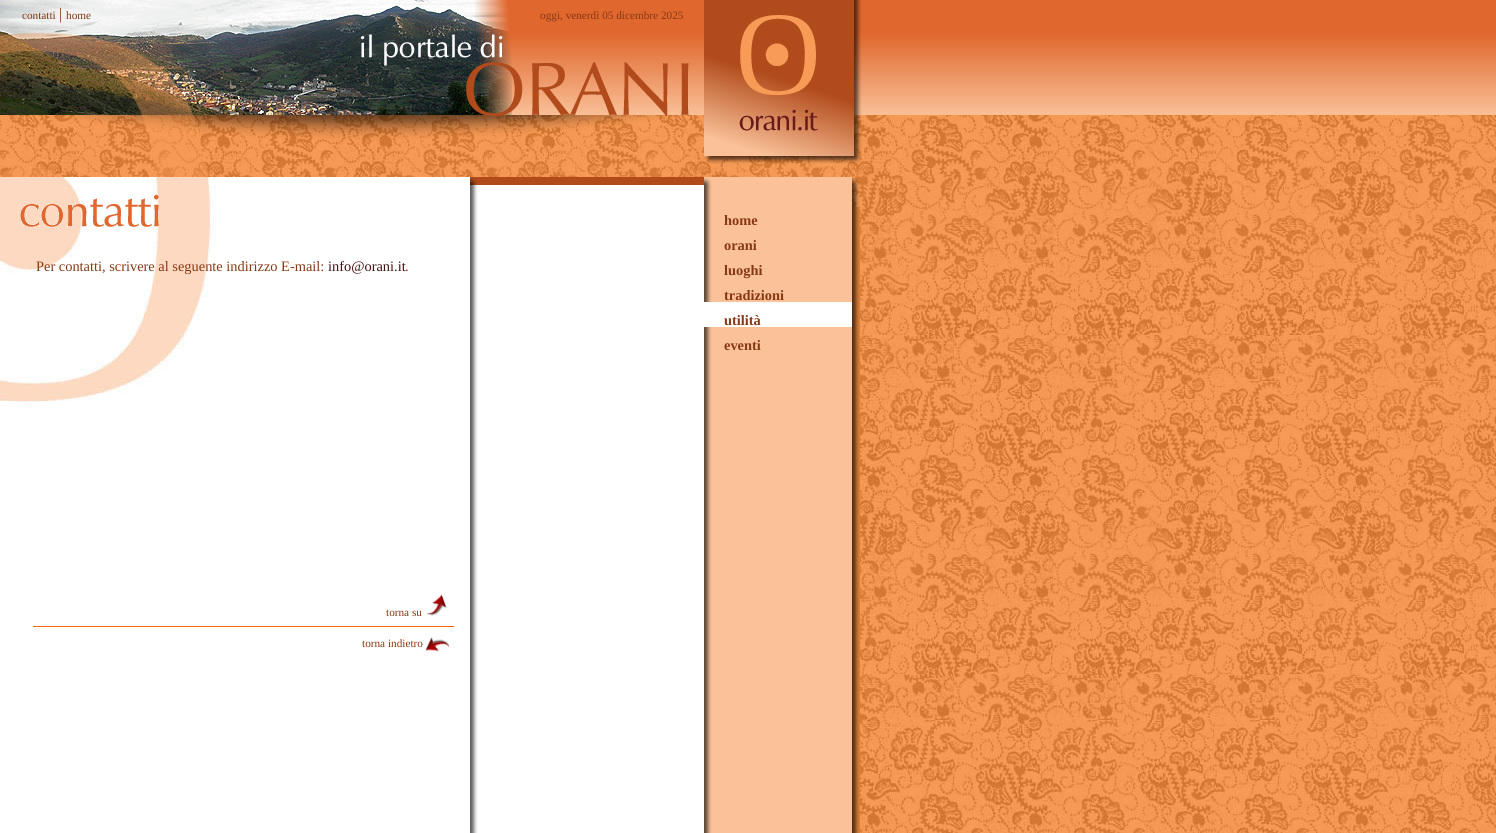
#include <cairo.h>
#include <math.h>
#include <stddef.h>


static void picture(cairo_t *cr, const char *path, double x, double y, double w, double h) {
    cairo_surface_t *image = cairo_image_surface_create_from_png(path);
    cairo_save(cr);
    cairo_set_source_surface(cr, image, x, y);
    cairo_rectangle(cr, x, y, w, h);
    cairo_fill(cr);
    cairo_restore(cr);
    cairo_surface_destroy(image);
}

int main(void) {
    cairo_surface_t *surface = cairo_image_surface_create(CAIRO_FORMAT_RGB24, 1496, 833);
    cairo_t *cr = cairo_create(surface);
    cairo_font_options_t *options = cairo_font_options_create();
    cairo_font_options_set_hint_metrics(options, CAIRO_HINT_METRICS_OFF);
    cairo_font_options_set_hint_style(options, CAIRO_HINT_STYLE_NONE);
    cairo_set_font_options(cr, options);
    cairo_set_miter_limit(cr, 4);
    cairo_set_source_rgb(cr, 1, 1, 1);
    cairo_paint(cr);
    picture(cr, "img1.png", 860, 115, 636, 718);
    picture(cr, "img2.png", 865, 0, 631, 115);
    picture(cr, "img3.png", 0, 0, 704, 177);
    cairo_select_font_face(cr, "Liberation Serif", CAIRO_FONT_SLANT_NORMAL, CAIRO_FONT_WEIGHT_NORMAL);
    cairo_set_font_size(cr, 11.25);
    cairo_set_source_rgb(cr, 0.529, 0.224, 0.078);
    cairo_move_to(cr, 22, 19);
    cairo_show_text(cr, "contatti");
    cairo_set_font_size(cr, 16);
    cairo_move_to(cr, 59, 19);
    cairo_show_text(cr, "|");
    cairo_set_font_size(cr, 11.25);
    cairo_move_to(cr, 66, 19);
    cairo_show_text(cr, "home");
    cairo_move_to(cr, 540, 19);
    cairo_show_text(cr, "oggi, venerdì 05 dicembre 2025");
    picture(cr, "img4.png", 704, 0, 161, 177);
    picture(cr, "img5.png", 0, 177, 860, 656);
    picture(cr, "img6.png", 470, 177, 234, 8);
    picture(cr, "img7.png", 0, 177, 216, 231);
    picture(cr, "img8.png", 20, 194, 139, 33);
    cairo_set_font_size(cr, 14.4);
    cairo_move_to(cr, 36, 271);
    cairo_show_text(cr, "Per contatti, scrivere al seguente indirizzo E-mail:");
    cairo_set_source_rgb(cr, 0.267, 0.067, 0.067);
    cairo_move_to(cr, 328, 271);
    cairo_show_text(cr, "info@orani.it");
    cairo_set_source_rgb(cr, 0.529, 0.224, 0.078);
    cairo_move_to(cr, 405, 271);
    cairo_show_text(cr, ".");
    cairo_set_source_rgb(cr, 1, 0.4, 0);
    cairo_rectangle(cr, 33, 626, 421, 1);
    cairo_fill(cr);
    cairo_set_font_size(cr, 11.25);
    cairo_set_source_rgb(cr, 0.529, 0.224, 0.078);
    cairo_move_to(cr, 386, 616);
    cairo_show_text(cr, "torna su");
    picture(cr, "img9.png", 426, 594, 21, 22);
    cairo_move_to(cr, 362, 647);
    cairo_show_text(cr, "torna indietro");
    picture(cr, "img10.png", 425, 636, 24, 16);
    picture(cr, "img11.png", 704, 177, 161, 30);
    cairo_select_font_face(cr, "Liberation Serif", CAIRO_FONT_SLANT_NORMAL, CAIRO_FONT_WEIGHT_BOLD);
    cairo_set_font_size(cr, 14.4);
    cairo_move_to(cr, 724, 225);
    cairo_show_text(cr, "home");
    cairo_move_to(cr, 724, 250);
    cairo_show_text(cr, "orani");
    cairo_move_to(cr, 724, 275);
    cairo_show_text(cr, "luoghi");
    cairo_move_to(cr, 724, 300);
    cairo_show_text(cr, "tradizioni");
    cairo_set_source_rgb(cr, 1, 1, 1);
    cairo_rectangle(cr, 704, 302, 148, 25);
    cairo_fill(cr);
    cairo_set_source_rgb(cr, 0.529, 0.224, 0.078);
    cairo_move_to(cr, 724, 325);
    cairo_show_text(cr, "utilità");
    cairo_move_to(cr, 724, 350);
    cairo_show_text(cr, "eventi");
    cairo_surface_write_to_png(surface, "page.png");
    cairo_font_options_destroy(options);
    cairo_destroy(cr);
    cairo_surface_destroy(surface);
    return 0;
}
